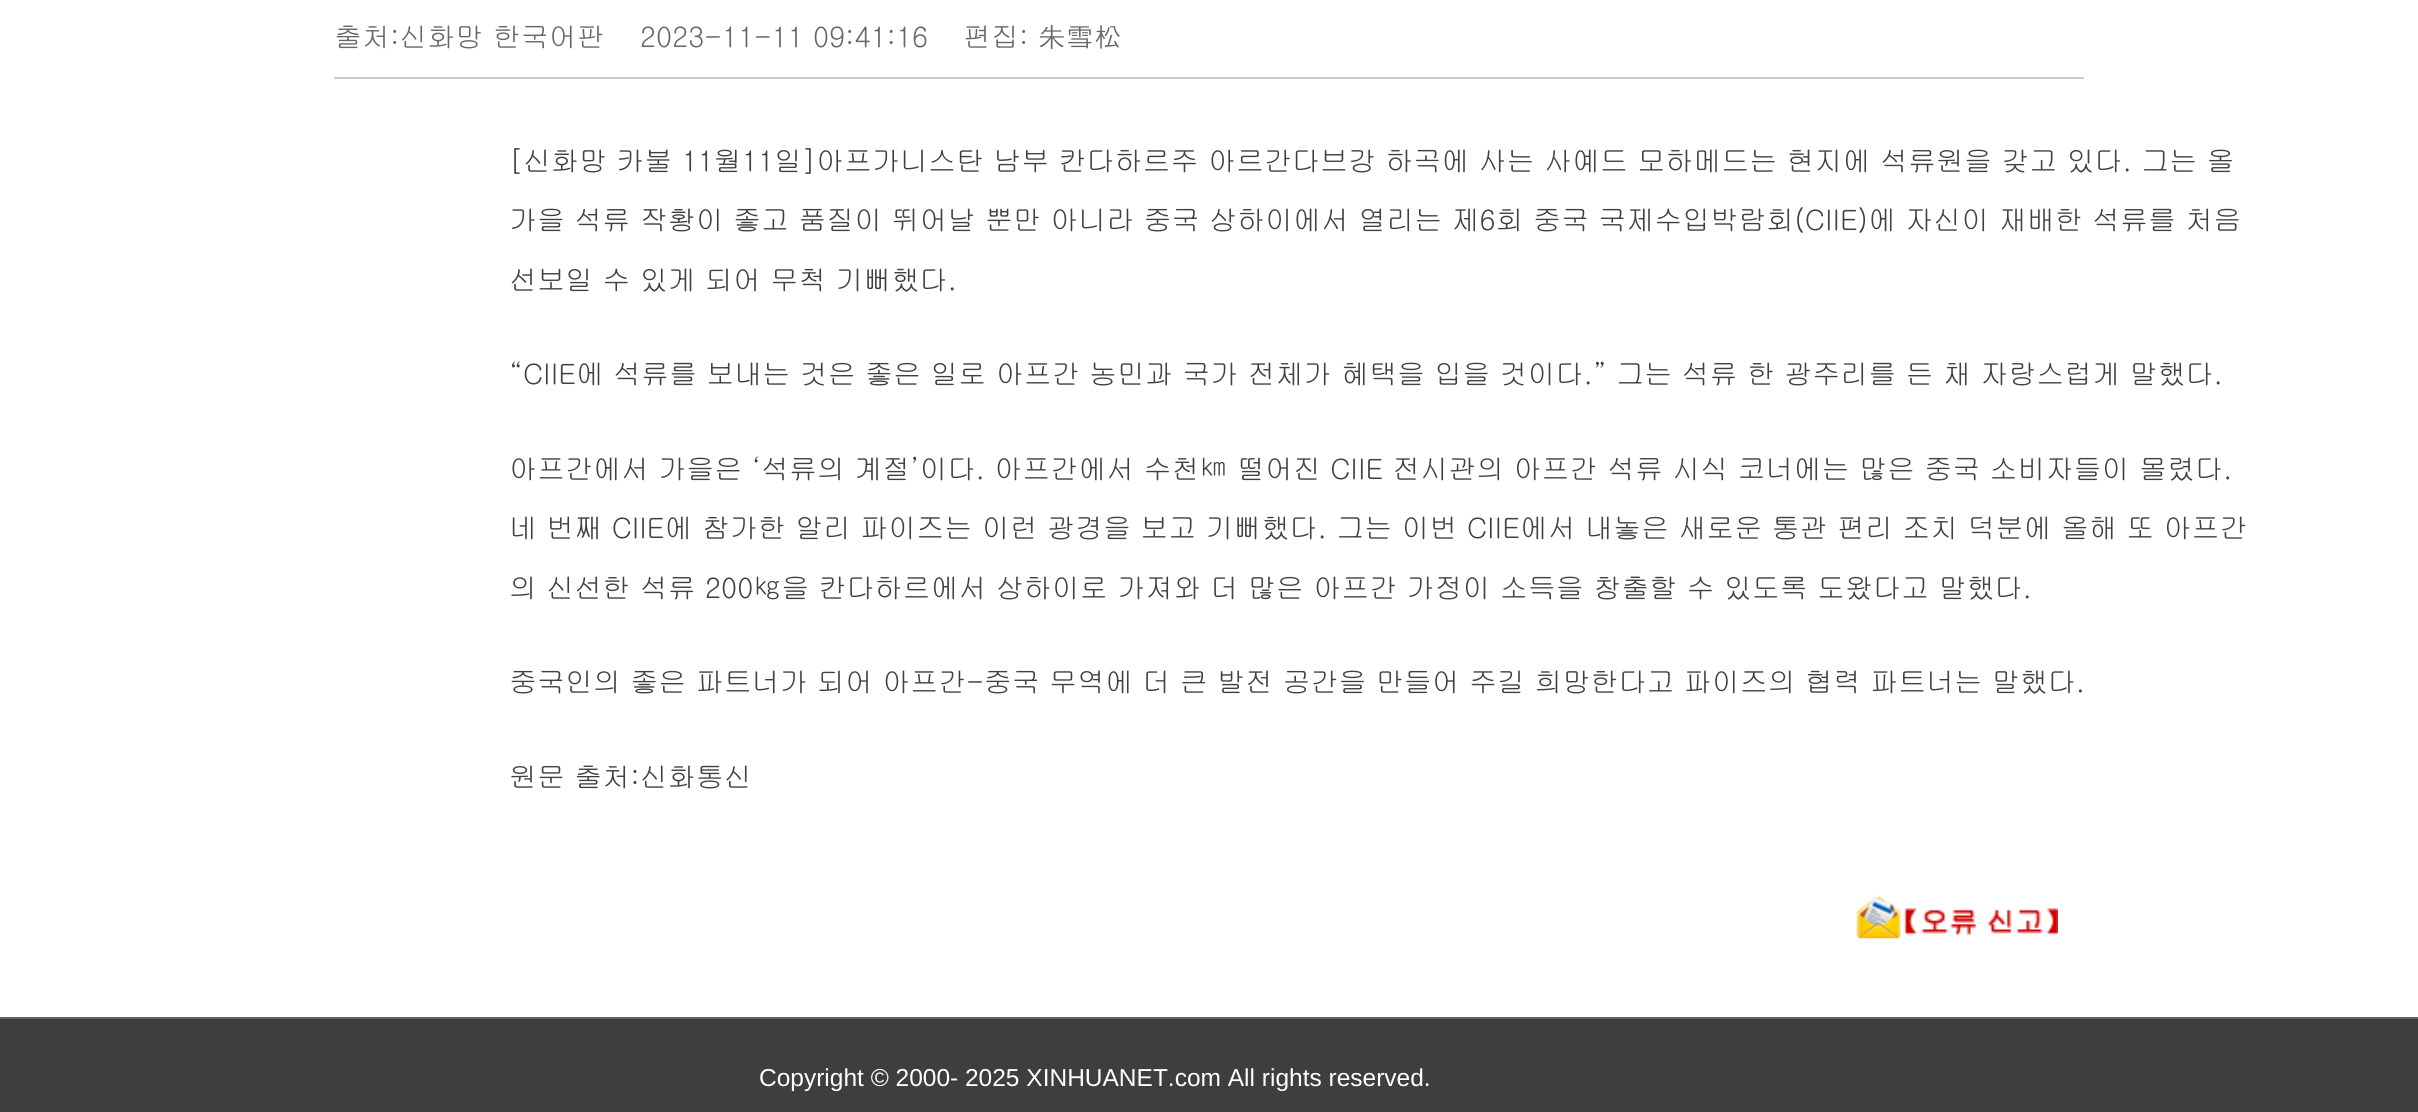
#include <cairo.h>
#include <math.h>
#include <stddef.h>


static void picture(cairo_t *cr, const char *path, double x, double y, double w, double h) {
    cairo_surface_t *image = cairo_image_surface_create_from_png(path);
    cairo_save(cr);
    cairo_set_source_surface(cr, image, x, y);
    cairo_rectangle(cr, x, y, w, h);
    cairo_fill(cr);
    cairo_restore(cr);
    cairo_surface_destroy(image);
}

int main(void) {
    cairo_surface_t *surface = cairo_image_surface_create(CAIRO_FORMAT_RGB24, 2418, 1112);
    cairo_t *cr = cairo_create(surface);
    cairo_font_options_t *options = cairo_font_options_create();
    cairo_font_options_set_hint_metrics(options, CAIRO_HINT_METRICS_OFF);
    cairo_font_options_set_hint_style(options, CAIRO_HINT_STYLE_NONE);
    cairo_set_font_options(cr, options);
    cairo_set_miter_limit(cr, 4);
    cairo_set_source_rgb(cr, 1, 1, 1);
    cairo_paint(cr);
    cairo_set_source_rgb(cr, 0.8, 0.8, 0.8);
    cairo_rectangle(cr, 334, 77, 1750, 2);
    cairo_fill(cr);
    cairo_select_font_face(cr, "Gulim", CAIRO_FONT_SLANT_NORMAL, CAIRO_FONT_WEIGHT_NORMAL);
    cairo_set_font_size(cr, 28);
    cairo_set_source_rgb(cr, 0.4, 0.4, 0.4);
    cairo_move_to(cr, 334, 47);
    cairo_show_text(cr, "출처:신화망 한국어판");
    cairo_move_to(cr, 640, 47);
    cairo_show_text(cr, "2023-11-11 09:41:16");
    cairo_move_to(cr, 963, 47);
    cairo_show_text(cr, "편집: 朱雪松");
    cairo_set_source_rgb(cr, 0.251, 0.251, 0.251);
    cairo_move_to(cr, 509, 171);
    cairo_show_text(cr, "[신화망 카불 11월11일]아프가니스탄 남부 칸다하르주 아르간다브강 하곡에 사는 사예드 모하메드는 현지에 석류원을 갖고 있다. 그는 올");
    cairo_move_to(cr, 509, 230);
    cairo_show_text(cr, "가을 석류 작황이 좋고 품질이 뛰어날 뿐만 아니라 중국 상하이에서 열리는 제6회 중국 국제수입박람회(CIIE)에 자신이 재배한 석류를 처음");
    cairo_move_to(cr, 509, 290);
    cairo_show_text(cr, "선보일 수 있게 되어 무척 기뻐했다.");
    cairo_move_to(cr, 509, 384);
    cairo_show_text(cr, "“CIIE에 석류를 보내는 것은 좋은 일로 아프간 농민과 국가 전체가 혜택을 입을 것이다.” 그는 석류 한 광주리를 든 채 자랑스럽게 말했다.");
    cairo_move_to(cr, 509, 479);
    cairo_show_text(cr, "아프간에서 가을은 ‘석류의 계절’이다. 아프간에서 수천㎞ 떨어진 CIIE 전시관의 아프간 석류 시식 코너에는 많은 중국 소비자들이 몰렸다.");
    cairo_move_to(cr, 509, 538);
    cairo_show_text(cr, "네 번째 CIIE에 참가한 알리 파이즈는 이런 광경을 보고 기뻐했다. 그는 이번 CIIE에서 내놓은 새로운 통관 편리 조치 덕분에 올해 또 아프간");
    cairo_move_to(cr, 509, 598);
    cairo_show_text(cr, "의 신선한 석류 200㎏을 칸다하르에서 상하이로 가져와 더 많은 아프간 가정이 소득을 창출할 수 있도록 도왔다고 말했다.");
    cairo_move_to(cr, 509, 692);
    cairo_show_text(cr, "중국인의 좋은 파트너가 되어 아프간-중국 무역에 더 큰 발전 공간을 만들어 주길 희망한다고 파이즈의 협력 파트너는 말했다.");
    cairo_move_to(cr, 509, 787);
    cairo_show_text(cr, "원문 출처:신화통신");
    picture(cr, "img1.png", 1856, 895, 202, 44);
    cairo_set_source_rgb(cr, 0.243, 0.243, 0.243);
    cairo_rectangle(cr, 0, 1019, 2418, 93);
    cairo_fill(cr);
    cairo_set_source_rgb(cr, 0.396, 0.396, 0.396);
    cairo_rectangle(cr, 0, 1017, 2418, 2);
    cairo_fill(cr);
    cairo_select_font_face(cr, "Liberation Sans", CAIRO_FONT_SLANT_NORMAL, CAIRO_FONT_WEIGHT_NORMAL);
    cairo_set_font_size(cr, 24.5);
    cairo_set_source_rgb(cr, 1, 1, 1);
    cairo_move_to(cr, 759, 1086);
    cairo_show_text(cr, "Copyright © 2000- 2025 XINHUANET.com All rights reserved.");
    cairo_surface_write_to_png(surface, "page.png");
    cairo_font_options_destroy(options);
    cairo_destroy(cr);
    cairo_surface_destroy(surface);
    return 0;
}
